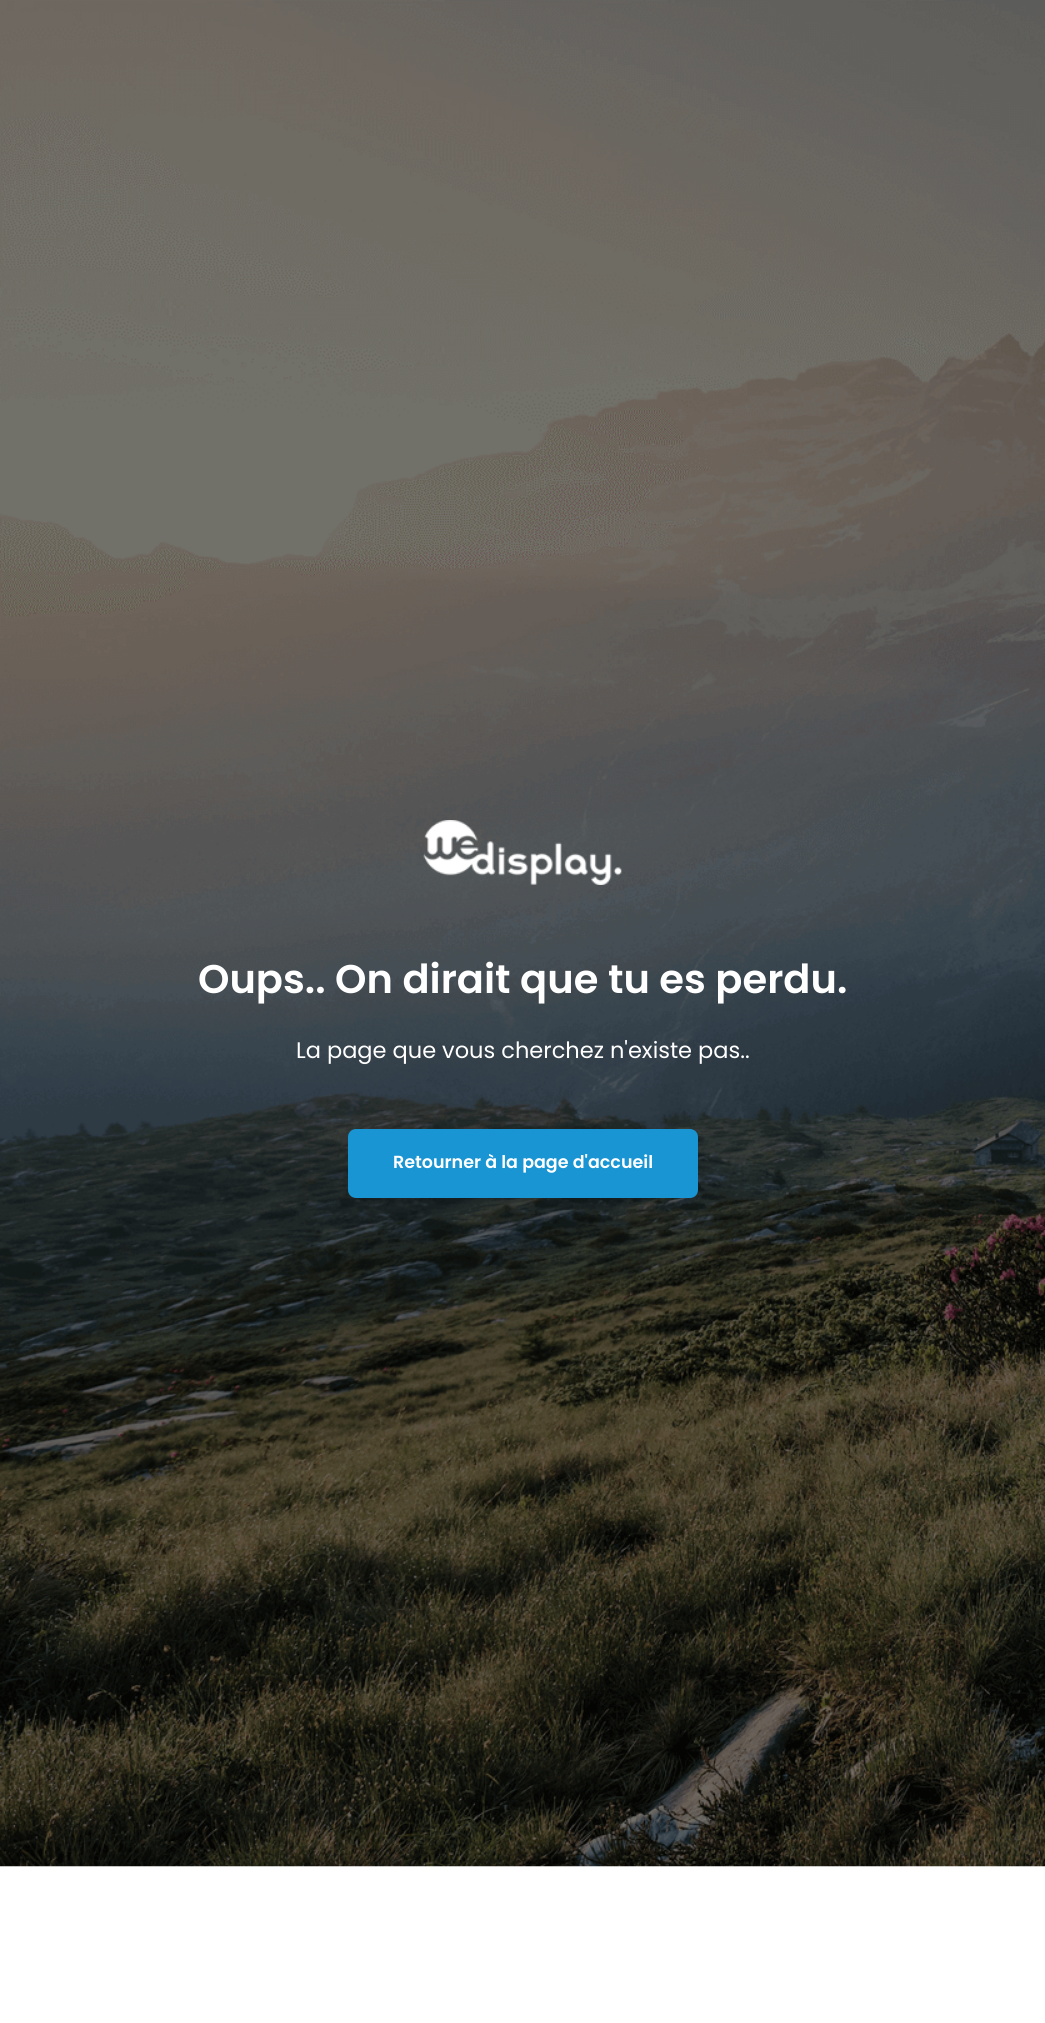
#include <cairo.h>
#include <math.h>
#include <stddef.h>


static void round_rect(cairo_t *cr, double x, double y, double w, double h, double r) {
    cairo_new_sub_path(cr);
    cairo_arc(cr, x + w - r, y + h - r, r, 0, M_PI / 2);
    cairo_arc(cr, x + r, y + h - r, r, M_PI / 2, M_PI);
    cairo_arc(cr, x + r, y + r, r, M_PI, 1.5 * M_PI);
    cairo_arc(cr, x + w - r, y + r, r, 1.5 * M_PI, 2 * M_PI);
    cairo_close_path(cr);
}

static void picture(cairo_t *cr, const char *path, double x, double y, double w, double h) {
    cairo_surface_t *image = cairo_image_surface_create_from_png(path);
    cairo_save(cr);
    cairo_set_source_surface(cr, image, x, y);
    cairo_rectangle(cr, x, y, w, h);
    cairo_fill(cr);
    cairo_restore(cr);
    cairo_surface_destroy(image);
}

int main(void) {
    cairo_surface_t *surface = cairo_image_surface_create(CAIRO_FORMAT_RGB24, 1045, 2023);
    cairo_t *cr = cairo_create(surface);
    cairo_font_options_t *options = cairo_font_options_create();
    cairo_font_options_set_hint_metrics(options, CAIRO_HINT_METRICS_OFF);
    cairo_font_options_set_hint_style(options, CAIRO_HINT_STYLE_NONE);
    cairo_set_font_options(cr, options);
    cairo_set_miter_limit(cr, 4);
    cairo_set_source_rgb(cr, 1, 1, 1);
    cairo_paint(cr);
    picture(cr, "img1.png", 0, 0, 1045, 1867);
    picture(cr, "img2.png", 423, 820, 199, 65);
    cairo_select_font_face(cr, "Poppins SemiBold", CAIRO_FONT_SLANT_NORMAL, CAIRO_FONT_WEIGHT_NORMAL);
    cairo_set_font_size(cr, 40);
    cairo_set_source_rgb(cr, 1, 1, 1);
    cairo_move_to(cr, 198, 993);
    cairo_show_text(cr, "Oups.. On dirait que tu es perdu.");
    cairo_select_font_face(cr, "Poppins", CAIRO_FONT_SLANT_NORMAL, CAIRO_FONT_WEIGHT_NORMAL);
    cairo_set_font_size(cr, 22.5);
    cairo_move_to(cr, 296, 1058);
    cairo_show_text(cr, "La page que vous cherchez n'existe pas..");
    cairo_set_source_rgb(cr, 0.098, 0.584, 0.827);
    round_rect(cr, 348, 1129, 350, 69, 8);
    cairo_fill(cr);
    cairo_select_font_face(cr, "Poppins SemiBold", CAIRO_FONT_SLANT_NORMAL, CAIRO_FONT_WEIGHT_NORMAL);
    cairo_set_font_size(cr, 17.5);
    cairo_set_source_rgb(cr, 1, 1, 1);
    cairo_move_to(cr, 393, 1168);
    cairo_show_text(cr, "Retourner à la page d'accueil");
    cairo_surface_write_to_png(surface, "page.png");
    cairo_font_options_destroy(options);
    cairo_destroy(cr);
    cairo_surface_destroy(surface);
    return 0;
}
